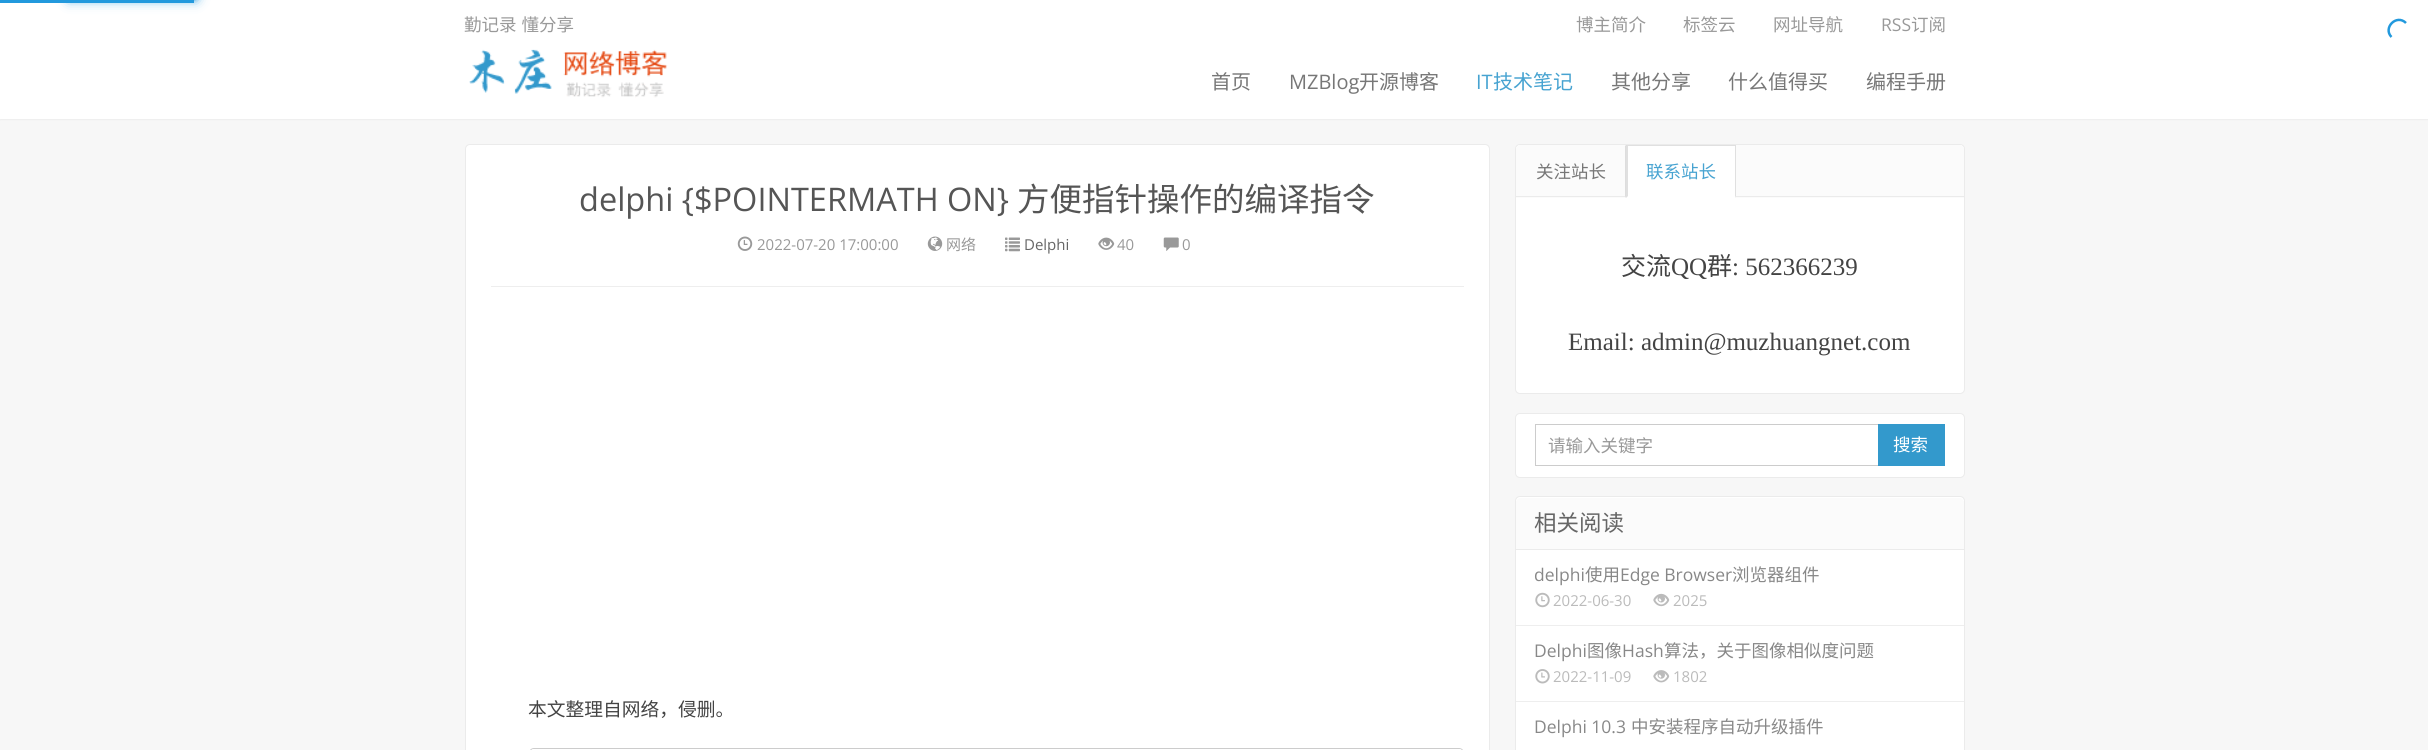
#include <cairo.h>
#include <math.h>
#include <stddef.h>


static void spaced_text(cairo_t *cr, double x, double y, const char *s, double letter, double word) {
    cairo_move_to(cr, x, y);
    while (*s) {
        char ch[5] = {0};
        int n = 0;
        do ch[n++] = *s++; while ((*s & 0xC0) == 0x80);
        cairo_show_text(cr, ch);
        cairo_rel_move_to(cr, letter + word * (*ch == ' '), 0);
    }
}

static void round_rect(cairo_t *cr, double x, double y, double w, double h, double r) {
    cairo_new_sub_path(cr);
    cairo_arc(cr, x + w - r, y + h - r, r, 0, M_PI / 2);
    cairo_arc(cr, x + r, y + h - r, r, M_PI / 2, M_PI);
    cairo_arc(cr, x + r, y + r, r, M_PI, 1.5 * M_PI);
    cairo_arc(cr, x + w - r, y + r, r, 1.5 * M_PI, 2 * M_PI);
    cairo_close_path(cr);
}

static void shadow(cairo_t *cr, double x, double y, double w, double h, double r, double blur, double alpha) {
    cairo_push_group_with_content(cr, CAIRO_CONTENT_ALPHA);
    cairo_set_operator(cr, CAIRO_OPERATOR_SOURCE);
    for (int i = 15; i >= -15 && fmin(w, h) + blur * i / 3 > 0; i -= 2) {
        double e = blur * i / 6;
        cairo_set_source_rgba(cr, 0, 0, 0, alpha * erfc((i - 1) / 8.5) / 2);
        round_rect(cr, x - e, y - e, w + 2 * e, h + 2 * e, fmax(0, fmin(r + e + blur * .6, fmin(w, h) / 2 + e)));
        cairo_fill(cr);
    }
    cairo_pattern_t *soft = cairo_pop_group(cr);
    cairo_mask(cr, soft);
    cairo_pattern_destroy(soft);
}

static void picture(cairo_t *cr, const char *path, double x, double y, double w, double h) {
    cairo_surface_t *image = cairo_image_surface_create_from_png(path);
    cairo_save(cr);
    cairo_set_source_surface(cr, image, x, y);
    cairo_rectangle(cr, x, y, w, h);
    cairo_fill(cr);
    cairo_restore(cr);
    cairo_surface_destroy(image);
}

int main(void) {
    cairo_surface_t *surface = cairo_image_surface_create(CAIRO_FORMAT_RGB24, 2428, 750);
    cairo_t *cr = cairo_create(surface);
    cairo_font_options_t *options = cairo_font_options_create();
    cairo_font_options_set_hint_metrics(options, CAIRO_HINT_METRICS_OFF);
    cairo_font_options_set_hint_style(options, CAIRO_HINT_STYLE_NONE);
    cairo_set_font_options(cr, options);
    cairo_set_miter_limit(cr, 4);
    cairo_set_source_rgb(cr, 0.965, 0.965, 0.965);
    cairo_paint(cr);
    cairo_set_source_rgb(cr, 0, 0, 0);
    shadow(cr, 0, 0, 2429, 119, 0, 1, 0.1);
    cairo_set_source_rgb(cr, 1, 1, 1);
    cairo_rectangle(cr, 0, 0, 2428, 119);
    cairo_fill(cr);
    cairo_set_source_rgb(cr, 0.133, 0.6, 0.867);
    cairo_rectangle(cr, 0, 0, 194, 3);
    cairo_fill(cr);
    cairo_set_source_rgb(cr, 0.133, 0.6, 0.867);
    shadow(cr, 70, -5, 125, 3, 0, 3, 1);
    shadow(cr, 70, -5, 125, 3, 0, 6.5, 1);
    cairo_new_path(cr);
    cairo_move_to(cr, 2391.5, 37);
    cairo_curve_to(cr, 2382.5, 28, 2396.5, 13.5, 2406, 23);
    cairo_set_source_rgb(cr, 0.133, 0.6, 0.867);
    cairo_set_line_width(cr, 2.5);
    cairo_stroke(cr);
    cairo_select_font_face(cr, "Noto Sans CJK SC", CAIRO_FONT_SLANT_NORMAL, CAIRO_FONT_WEIGHT_NORMAL);
    cairo_set_font_size(cr, 17.5);
    cairo_set_source_rgb(cr, 0.6, 0.6, 0.6);
    spaced_text(cr, 464, 31, "勤记录 懂分享", 0, 1);
    cairo_move_to(cr, 1576, 31);
    cairo_show_text(cr, "博主简介");
    cairo_move_to(cr, 1683, 31);
    cairo_show_text(cr, "标签云");
    cairo_move_to(cr, 1773, 31);
    cairo_show_text(cr, "网址导航");
    cairo_select_font_face(cr, "Open Sans", CAIRO_FONT_SLANT_NORMAL, CAIRO_FONT_WEIGHT_NORMAL);
    cairo_move_to(cr, 1881, 31);
    cairo_show_text(cr, "RSS");
    cairo_select_font_face(cr, "Noto Sans CJK SC", CAIRO_FONT_SLANT_NORMAL, CAIRO_FONT_WEIGHT_NORMAL);
    cairo_move_to(cr, 1911, 31);
    cairo_show_text(cr, "订阅");
    picture(cr, "img1.png", 469, 49, 199, 49);
    cairo_set_font_size(cr, 20);
    cairo_set_source_rgb(cr, 0.467, 0.467, 0.467);
    cairo_move_to(cr, 1211, 89);
    cairo_show_text(cr, "首页");
    cairo_select_font_face(cr, "Open Sans", CAIRO_FONT_SLANT_NORMAL, CAIRO_FONT_WEIGHT_NORMAL);
    cairo_move_to(cr, 1289, 89);
    cairo_show_text(cr, "MZBlog");
    cairo_select_font_face(cr, "Noto Sans CJK SC", CAIRO_FONT_SLANT_NORMAL, CAIRO_FONT_WEIGHT_NORMAL);
    cairo_move_to(cr, 1359, 89);
    cairo_show_text(cr, "开源博客");
    cairo_select_font_face(cr, "Open Sans", CAIRO_FONT_SLANT_NORMAL, CAIRO_FONT_WEIGHT_NORMAL);
    cairo_set_source_rgb(cr, 0.278, 0.639, 0.82);
    cairo_move_to(cr, 1476, 89);
    cairo_show_text(cr, "IT");
    cairo_select_font_face(cr, "Noto Sans CJK SC", CAIRO_FONT_SLANT_NORMAL, CAIRO_FONT_WEIGHT_NORMAL);
    cairo_move_to(cr, 1493, 89);
    cairo_show_text(cr, "技术笔记");
    cairo_set_source_rgb(cr, 0.467, 0.467, 0.467);
    cairo_move_to(cr, 1611, 89);
    cairo_show_text(cr, "其他分享");
    cairo_move_to(cr, 1728, 89);
    cairo_show_text(cr, "什么值得买");
    cairo_move_to(cr, 1866, 89);
    cairo_show_text(cr, "编程手册");
    cairo_set_source_rgb(cr, 1, 1, 1);
    round_rect(cr, 465.5, 144.5, 1024, 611, 4.5);
    cairo_fill_preserve(cr);
    cairo_set_source_rgb(cr, 0.918, 0.918, 0.918);
    cairo_set_line_width(cr, 1);
    cairo_stroke(cr);
    cairo_set_source_rgb(cr, 0.933, 0.933, 0.933);
    cairo_rectangle(cr, 491, 286, 973, 1);
    cairo_fill(cr);
    cairo_select_font_face(cr, "Open Sans", CAIRO_FONT_SLANT_NORMAL, CAIRO_FONT_WEIGHT_NORMAL);
    cairo_set_font_size(cr, 32.5);
    cairo_set_source_rgb(cr, 0.333, 0.333, 0.333);
    cairo_move_to(cr, 579, 211);
    cairo_show_text(cr, "delphi {$POINTERMATH ON}");
    cairo_select_font_face(cr, "Noto Sans CJK SC", CAIRO_FONT_SLANT_NORMAL, CAIRO_FONT_WEIGHT_NORMAL);
    cairo_move_to(cr, 1017, 211);
    cairo_show_text(cr, "方便指针操作的编译指令");
    picture(cr, "img2.png", 737, 236, 16, 15);
    cairo_select_font_face(cr, "Open Sans", CAIRO_FONT_SLANT_NORMAL, CAIRO_FONT_WEIGHT_NORMAL);
    cairo_set_font_size(cr, 15);
    cairo_set_source_rgb(cr, 0.6, 0.6, 0.6);
    cairo_move_to(cr, 757, 250);
    cairo_show_text(cr, "2022-07-20 17:00:00");
    picture(cr, "img3.png", 927, 236, 16, 15);
    cairo_select_font_face(cr, "Noto Sans CJK SC", CAIRO_FONT_SLANT_NORMAL, CAIRO_FONT_WEIGHT_NORMAL);
    cairo_move_to(cr, 946, 250);
    cairo_show_text(cr, "网络");
    picture(cr, "img4.png", 1005, 237, 15, 15);
    cairo_select_font_face(cr, "Open Sans", CAIRO_FONT_SLANT_NORMAL, CAIRO_FONT_WEIGHT_NORMAL);
    cairo_set_source_rgb(cr, 0.4, 0.4, 0.4);
    cairo_move_to(cr, 1024, 250);
    cairo_show_text(cr, "Delphi");
    picture(cr, "img5.png", 1098, 237, 17, 13);
    cairo_set_source_rgb(cr, 0.6, 0.6, 0.6);
    cairo_move_to(cr, 1117, 250);
    cairo_show_text(cr, "40");
    picture(cr, "img6.png", 1163, 237, 16, 14);
    cairo_move_to(cr, 1182, 250);
    cairo_show_text(cr, "0");
    cairo_select_font_face(cr, "Noto Sans CJK SC", CAIRO_FONT_SLANT_NORMAL, CAIRO_FONT_WEIGHT_NORMAL);
    cairo_set_font_size(cr, 18.75);
    cairo_set_source_rgb(cr, 0.267, 0.267, 0.267);
    cairo_move_to(cr, 528, 716);
    cairo_show_text(cr, "本文整理自网络，侵删。");
    round_rect(cr, 529.5, 748.5, 934, 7, 4.5);
    cairo_set_source_rgb(cr, 0.8, 0.8, 0.8);
    cairo_stroke(cr);
    cairo_set_source_rgb(cr, 1, 1, 1);
    round_rect(cr, 530, 749, 933, 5, 4);
    cairo_fill(cr);
    round_rect(cr, 1515.5, 144.5, 449, 249, 4.5);
    cairo_fill_preserve(cr);
    cairo_set_source_rgb(cr, 0.918, 0.918, 0.918);
    cairo_stroke(cr);
    cairo_set_source_rgb(cr, 0.984, 0.984, 0.984);
    cairo_new_path(cr);
    cairo_move_to(cr, 1520, 145);
    cairo_line_to(cr, 1960, 145);
    cairo_curve_to(cr, 1962, 145, 1964, 147, 1964, 149);
    cairo_line_to(cr, 1964, 198);
    cairo_line_to(cr, 1516, 198);
    cairo_line_to(cr, 1516, 149);
    cairo_curve_to(cr, 1516, 147, 1518, 145, 1520, 145);
    cairo_close_path(cr);
    cairo_fill(cr);
    cairo_set_source_rgb(cr, 0.918, 0.918, 0.918);
    cairo_rectangle(cr, 1516, 196, 448, 1);
    cairo_fill(cr);
    cairo_set_source_rgb(cr, 0.867, 0.867, 0.867);
    cairo_new_path(cr);
    cairo_move_to(cr, 1626, 145);
    cairo_line_to(cr, 1626, 198);
    cairo_line_to(cr, 1625, 196);
    cairo_line_to(cr, 1625, 146);
    cairo_close_path(cr);
    cairo_fill(cr);
    cairo_set_font_size(cr, 17.5);
    cairo_set_source_rgb(cr, 0.467, 0.467, 0.467);
    cairo_move_to(cr, 1536, 178);
    cairo_show_text(cr, "关注站长");
    cairo_set_source_rgb(cr, 1, 1, 1);
    cairo_rectangle(cr, 1626, 146, 110, 52);
    cairo_fill(cr);
    cairo_set_source_rgb(cr, 0.878, 0.878, 0.878);
    cairo_rectangle(cr, 1626, 145, 110, 1);
    cairo_fill(cr);
    cairo_set_source_rgba(cr, 0.867, 0.867, 0.867, 0.9);
    cairo_new_path(cr);
    cairo_move_to(cr, 1736, 145);
    cairo_line_to(cr, 1736, 198);
    cairo_line_to(cr, 1735, 196);
    cairo_line_to(cr, 1735, 146);
    cairo_close_path(cr);
    cairo_fill(cr);
    cairo_new_path(cr);
    cairo_move_to(cr, 1626, 198);
    cairo_line_to(cr, 1626, 145);
    cairo_line_to(cr, 1628, 146);
    cairo_line_to(cr, 1628, 196);
    cairo_close_path(cr);
    cairo_fill(cr);
    cairo_set_source_rgb(cr, 0.278, 0.639, 0.82);
    cairo_move_to(cr, 1646, 178);
    cairo_show_text(cr, "联系站长");
    cairo_set_font_size(cr, 25);
    cairo_set_source_rgb(cr, 0.267, 0.267, 0.267);
    cairo_move_to(cr, 1621, 275);
    cairo_show_text(cr, "交流");
    cairo_select_font_face(cr, "Liberation Serif", CAIRO_FONT_SLANT_NORMAL, CAIRO_FONT_WEIGHT_NORMAL);
    cairo_move_to(cr, 1671, 275);
    cairo_show_text(cr, "QQ");
    cairo_select_font_face(cr, "Noto Sans CJK SC", CAIRO_FONT_SLANT_NORMAL, CAIRO_FONT_WEIGHT_NORMAL);
    cairo_move_to(cr, 1707, 275);
    cairo_show_text(cr, "群");
    cairo_select_font_face(cr, "Liberation Serif", CAIRO_FONT_SLANT_NORMAL, CAIRO_FONT_WEIGHT_NORMAL);
    cairo_move_to(cr, 1732, 275);
    cairo_show_text(cr, ": 562366239");
    cairo_move_to(cr, 1568, 350);
    cairo_show_text(cr, "Email: admin@muzhuangnet.com");
    cairo_set_source_rgb(cr, 1, 1, 1);
    round_rect(cr, 1515.5, 413.5, 449, 64, 4.5);
    cairo_fill_preserve(cr);
    cairo_set_source_rgb(cr, 0.918, 0.918, 0.918);
    cairo_stroke(cr);
    cairo_rectangle(cr, 1535.5, 424.5, 343, 41);
    cairo_set_source_rgb(cr, 0.8, 0.8, 0.8);
    cairo_stroke(cr);
    cairo_select_font_face(cr, "Noto Sans CJK SC", CAIRO_FONT_SLANT_NORMAL, CAIRO_FONT_WEIGHT_NORMAL);
    cairo_set_font_size(cr, 17.5);
    cairo_set_source_rgb(cr, 0.6, 0.6, 0.6);
    cairo_move_to(cr, 1548, 452);
    cairo_show_text(cr, "请输入关键字");
    cairo_set_source_rgb(cr, 0.2, 0.6, 0.8);
    cairo_rectangle(cr, 1878, 424, 67, 42);
    cairo_fill(cr);
    cairo_set_source_rgb(cr, 1, 1, 1);
    cairo_move_to(cr, 1893, 451);
    cairo_show_text(cr, "搜索");
    round_rect(cr, 1515.5, 496.5, 449, 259, 4.5);
    cairo_fill_preserve(cr);
    cairo_set_source_rgb(cr, 0.918, 0.918, 0.918);
    cairo_stroke(cr);
    cairo_set_source_rgb(cr, 0.984, 0.984, 0.984);
    cairo_new_path(cr);
    cairo_move_to(cr, 1520, 498);
    cairo_line_to(cr, 1960, 498);
    cairo_curve_to(cr, 1962, 498, 1964, 500, 1964, 502);
    cairo_line_to(cr, 1964, 550);
    cairo_line_to(cr, 1516, 550);
    cairo_line_to(cr, 1516, 502);
    cairo_curve_to(cr, 1516, 500, 1518, 498, 1520, 498);
    cairo_close_path(cr);
    cairo_fill(cr);
    cairo_set_source_rgb(cr, 0.918, 0.918, 0.918);
    cairo_rectangle(cr, 1516, 549, 448, 1);
    cairo_fill(cr);
    cairo_set_font_size(cr, 22.5);
    cairo_set_source_rgb(cr, 0.4, 0.4, 0.4);
    cairo_move_to(cr, 1534, 531);
    cairo_show_text(cr, "相关阅读");
    cairo_set_source_rgb(cr, 0.933, 0.933, 0.933);
    cairo_rectangle(cr, 1516, 625, 448, 1);
    cairo_fill(cr);
    cairo_select_font_face(cr, "Open Sans", CAIRO_FONT_SLANT_NORMAL, CAIRO_FONT_WEIGHT_NORMAL);
    cairo_set_font_size(cr, 17.5);
    cairo_set_source_rgb(cr, 0.533, 0.533, 0.533);
    cairo_move_to(cr, 1534, 581);
    cairo_show_text(cr, "delphi");
    cairo_select_font_face(cr, "Noto Sans CJK SC", CAIRO_FONT_SLANT_NORMAL, CAIRO_FONT_WEIGHT_NORMAL);
    cairo_move_to(cr, 1585, 581);
    cairo_show_text(cr, "使用");
    cairo_select_font_face(cr, "Open Sans", CAIRO_FONT_SLANT_NORMAL, CAIRO_FONT_WEIGHT_NORMAL);
    cairo_move_to(cr, 1620, 581);
    cairo_show_text(cr, "Edge Browser");
    cairo_select_font_face(cr, "Noto Sans CJK SC", CAIRO_FONT_SLANT_NORMAL, CAIRO_FONT_WEIGHT_NORMAL);
    cairo_move_to(cr, 1732, 581);
    cairo_show_text(cr, "浏览器组件");
    picture(cr, "img7.png", 1535, 592, 15, 16);
    cairo_select_font_face(cr, "Open Sans", CAIRO_FONT_SLANT_NORMAL, CAIRO_FONT_WEIGHT_NORMAL);
    cairo_set_font_size(cr, 15);
    cairo_set_source_rgb(cr, 0.733, 0.733, 0.733);
    cairo_move_to(cr, 1553, 606);
    cairo_show_text(cr, "2022-06-30");
    picture(cr, "img8.png", 1653, 593, 17, 14);
    cairo_move_to(cr, 1673, 606);
    cairo_show_text(cr, "2025");
    cairo_set_source_rgb(cr, 0.933, 0.933, 0.933);
    cairo_rectangle(cr, 1516, 701, 448, 1);
    cairo_fill(cr);
    cairo_set_font_size(cr, 17.5);
    cairo_set_source_rgb(cr, 0.533, 0.533, 0.533);
    cairo_move_to(cr, 1534, 657);
    cairo_show_text(cr, "Delphi");
    cairo_select_font_face(cr, "Noto Sans CJK SC", CAIRO_FONT_SLANT_NORMAL, CAIRO_FONT_WEIGHT_NORMAL);
    cairo_move_to(cr, 1587, 657);
    cairo_show_text(cr, "图像");
    cairo_select_font_face(cr, "Open Sans", CAIRO_FONT_SLANT_NORMAL, CAIRO_FONT_WEIGHT_NORMAL);
    cairo_move_to(cr, 1622, 657);
    cairo_show_text(cr, "Hash");
    cairo_select_font_face(cr, "Noto Sans CJK SC", CAIRO_FONT_SLANT_NORMAL, CAIRO_FONT_WEIGHT_NORMAL);
    cairo_move_to(cr, 1664, 657);
    cairo_show_text(cr, "算法，关于图像相似度问题");
    picture(cr, "img9.png", 1535, 669, 15, 15);
    cairo_select_font_face(cr, "Open Sans", CAIRO_FONT_SLANT_NORMAL, CAIRO_FONT_WEIGHT_NORMAL);
    cairo_set_font_size(cr, 15);
    cairo_set_source_rgb(cr, 0.733, 0.733, 0.733);
    cairo_move_to(cr, 1553, 682);
    cairo_show_text(cr, "2022-11-09");
    picture(cr, "img10.png", 1653, 670, 17, 13);
    cairo_move_to(cr, 1673, 682);
    cairo_show_text(cr, "1802");
    cairo_set_font_size(cr, 17.5);
    cairo_set_source_rgb(cr, 0.533, 0.533, 0.533);
    cairo_move_to(cr, 1534, 733);
    cairo_show_text(cr, "Delphi 10.3");
    cairo_select_font_face(cr, "Noto Sans CJK SC", CAIRO_FONT_SLANT_NORMAL, CAIRO_FONT_WEIGHT_NORMAL);
    cairo_move_to(cr, 1631, 733);
    cairo_show_text(cr, "中安装程序自动升级插件");
    cairo_surface_write_to_png(surface, "page.png");
    cairo_font_options_destroy(options);
    cairo_destroy(cr);
    cairo_surface_destroy(surface);
    return 0;
}
